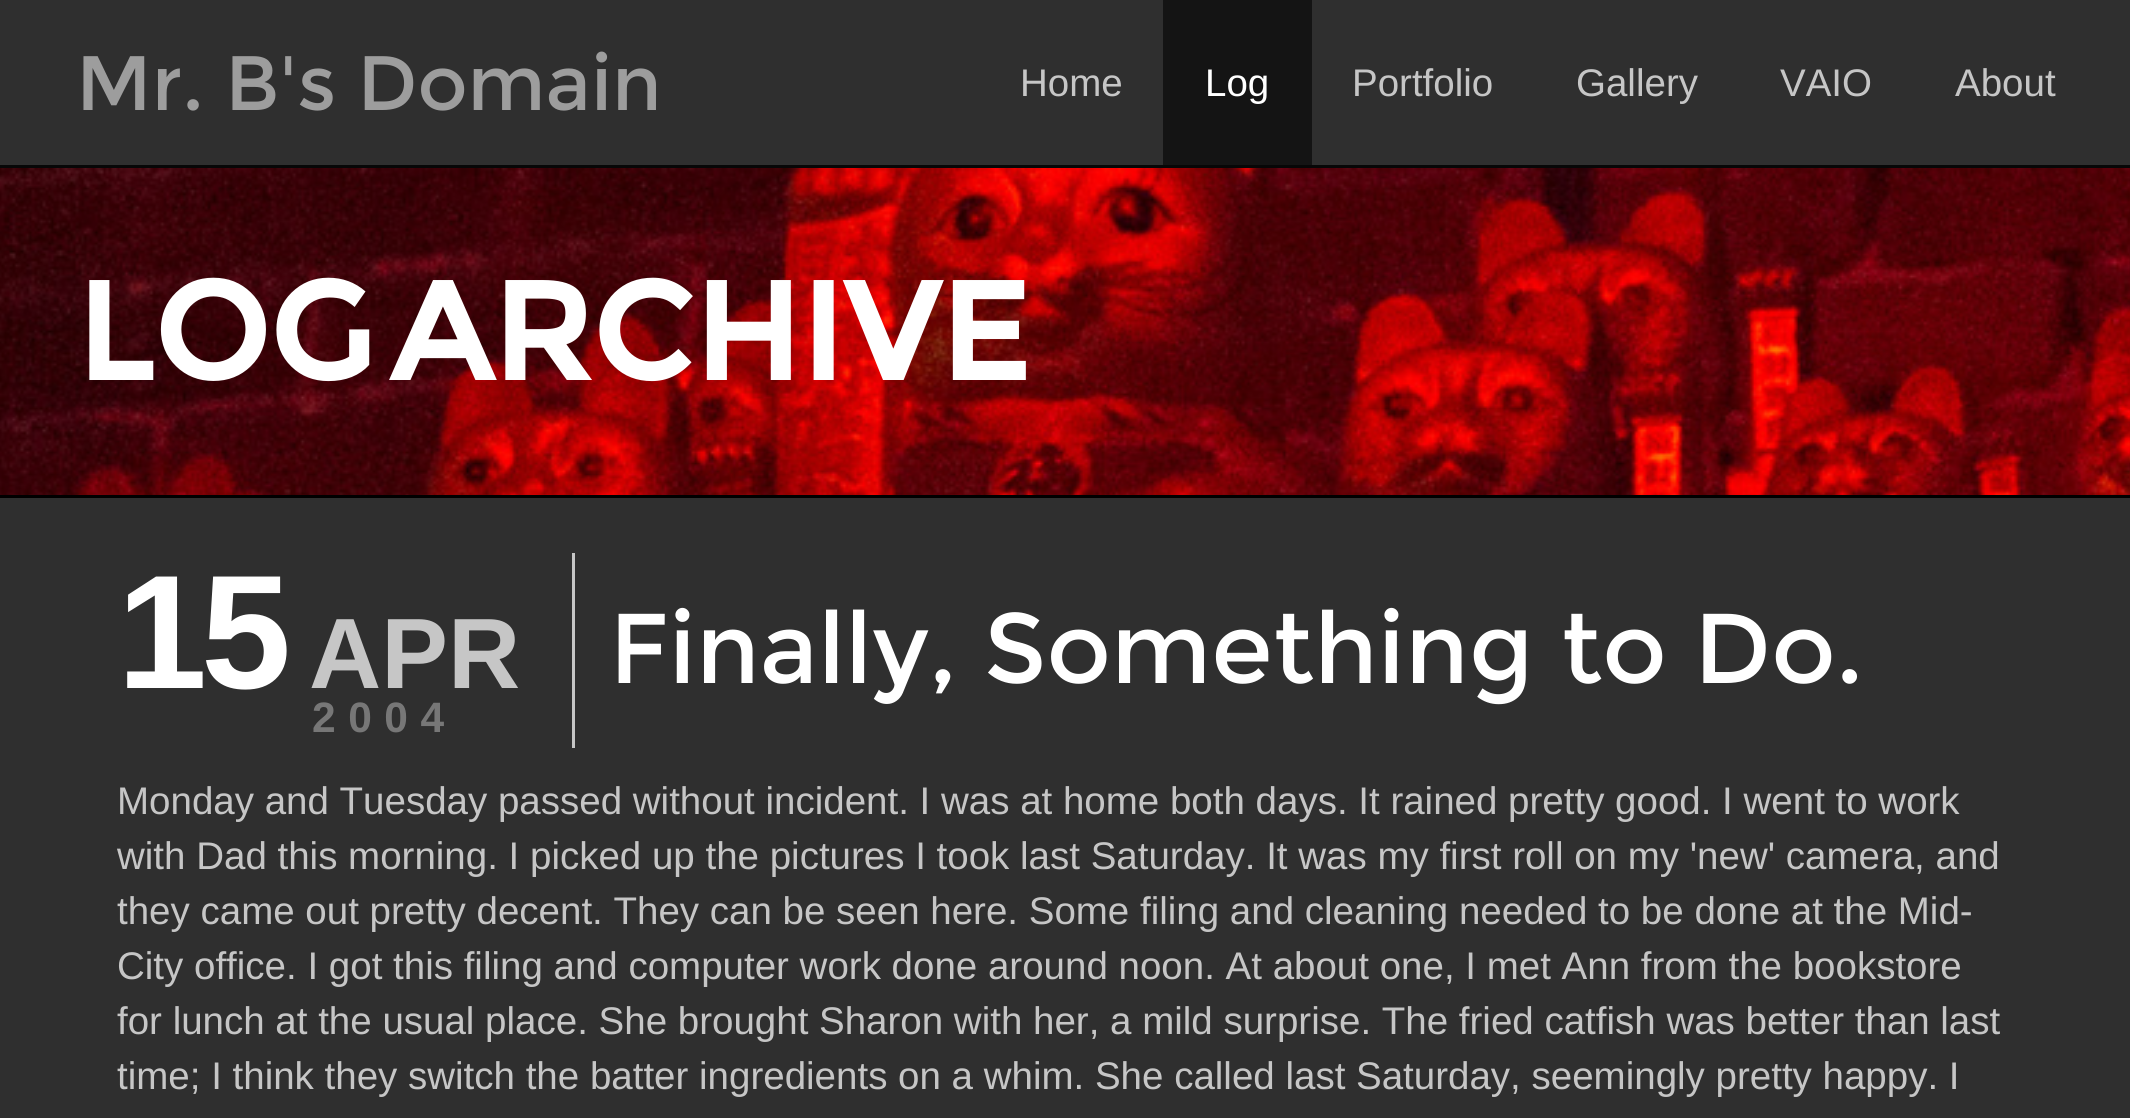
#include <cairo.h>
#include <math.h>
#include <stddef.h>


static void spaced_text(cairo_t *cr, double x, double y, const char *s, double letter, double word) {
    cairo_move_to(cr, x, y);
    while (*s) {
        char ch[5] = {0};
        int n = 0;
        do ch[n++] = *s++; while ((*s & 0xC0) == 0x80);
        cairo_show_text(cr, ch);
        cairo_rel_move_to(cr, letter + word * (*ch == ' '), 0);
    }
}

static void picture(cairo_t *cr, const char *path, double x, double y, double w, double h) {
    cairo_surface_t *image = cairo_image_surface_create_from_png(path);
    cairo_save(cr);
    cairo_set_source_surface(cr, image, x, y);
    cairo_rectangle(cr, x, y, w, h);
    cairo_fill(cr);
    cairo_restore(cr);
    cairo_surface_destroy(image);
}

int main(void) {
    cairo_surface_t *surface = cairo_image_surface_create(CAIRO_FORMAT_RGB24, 2130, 1118);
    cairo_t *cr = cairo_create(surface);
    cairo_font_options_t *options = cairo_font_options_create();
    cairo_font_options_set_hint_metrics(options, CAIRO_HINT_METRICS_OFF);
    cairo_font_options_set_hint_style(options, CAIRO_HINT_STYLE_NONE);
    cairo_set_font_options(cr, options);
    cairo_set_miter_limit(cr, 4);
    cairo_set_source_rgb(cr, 0.184, 0.184, 0.184);
    cairo_paint(cr);
    cairo_set_source_rgb(cr, 0.031, 0.031, 0.031);
    cairo_rectangle(cr, 0, 165, 2130, 3);
    cairo_fill(cr);
    cairo_select_font_face(cr, "Montserrat", CAIRO_FONT_SLANT_NORMAL, CAIRO_FONT_WEIGHT_NORMAL);
    cairo_set_font_size(cr, 77);
    cairo_set_source_rgb(cr, 0.616, 0.616, 0.616);
    cairo_move_to(cr, 76, 110);
    cairo_show_text(cr, "Mr. B's Domain");
    cairo_select_font_face(cr, "Liberation Sans", CAIRO_FONT_SLANT_NORMAL, CAIRO_FONT_WEIGHT_NORMAL);
    cairo_set_font_size(cr, 38.5);
    cairo_set_source_rgb(cr, 0.776, 0.776, 0.776);
    cairo_move_to(cr, 1020, 96);
    cairo_show_text(cr, "Home");
    cairo_set_source_rgb(cr, 0.082, 0.082, 0.082);
    cairo_rectangle(cr, 1163, 0, 149, 165);
    cairo_fill(cr);
    cairo_set_source_rgb(cr, 1, 1, 1);
    cairo_move_to(cr, 1205, 96);
    cairo_show_text(cr, "Log");
    cairo_set_source_rgb(cr, 0.776, 0.776, 0.776);
    cairo_move_to(cr, 1352, 96);
    cairo_show_text(cr, "Portfolio");
    cairo_move_to(cr, 1576, 96);
    cairo_show_text(cr, "Gallery");
    cairo_move_to(cr, 1780, 96);
    cairo_show_text(cr, "VAIO");
    cairo_move_to(cr, 1955, 96);
    cairo_show_text(cr, "About");
    picture(cr, "img1.png", 0, 168, 2130, 327);
    cairo_set_source_rgb(cr, 0, 0, 0);
    cairo_rectangle(cr, 0, 495, 2130, 3);
    cairo_fill(cr);
    cairo_select_font_face(cr, "Montserrat", CAIRO_FONT_SLANT_NORMAL, CAIRO_FONT_WEIGHT_BOLD);
    cairo_set_font_size(cr, 137.5);
    cairo_set_source_rgb(cr, 1, 1, 1);
    spaced_text(cr, 76, 380, "LOG ARCHIVE", 0, -21);
    cairo_set_source_rgb(cr, 0.776, 0.776, 0.776);
    cairo_rectangle(cr, 572, 553, 3, 195);
    cairo_fill(cr);
    cairo_select_font_face(cr, "Liberation Sans", CAIRO_FONT_SLANT_NORMAL, CAIRO_FONT_WEIGHT_BOLD);
    cairo_set_font_size(cr, 162);
    cairo_set_source_rgb(cr, 1, 1, 1);
    spaced_text(cr, 117, 688, "15", -6, 0);
    cairo_set_font_size(cr, 100);
    cairo_set_source_rgb(cr, 0.776, 0.776, 0.776);
    cairo_move_to(cr, 309, 688);
    cairo_show_text(cr, "APR");
    cairo_set_font_size(cr, 42.5);
    cairo_set_source_rgb(cr, 0.467, 0.467, 0.467);
    spaced_text(cr, 312, 732, "2004", 12.5, 0);
    cairo_select_font_face(cr, "Montserrat", CAIRO_FONT_SLANT_NORMAL, CAIRO_FONT_WEIGHT_NORMAL);
    cairo_set_font_size(cr, 99);
    cairo_set_source_rgb(cr, 1, 1, 1);
    cairo_move_to(cr, 609, 683);
    cairo_show_text(cr, "Finally, Something to Do.");
    cairo_select_font_face(cr, "Liberation Sans", CAIRO_FONT_SLANT_NORMAL, CAIRO_FONT_WEIGHT_NORMAL);
    cairo_set_font_size(cr, 38.5);
    cairo_set_source_rgb(cr, 0.776, 0.776, 0.776);
    cairo_move_to(cr, 117, 814);
    cairo_show_text(cr, "Monday and Tuesday passed without incident. I was at home both days. It rained pretty good. I went to work");
    cairo_move_to(cr, 117, 869);
    cairo_show_text(cr, "with Dad this morning. I picked up the pictures I took last Saturday. It was my first roll on my 'new' camera, and");
    cairo_move_to(cr, 117, 924);
    cairo_show_text(cr, "they came out pretty decent. They can be seen here. Some filing and cleaning needed to be done at the Mid-");
    cairo_move_to(cr, 117, 979);
    cairo_show_text(cr, "City office. I got this filing and computer work done around noon. At about one, I met Ann from the bookstore");
    cairo_move_to(cr, 117, 1034);
    cairo_show_text(cr, "for lunch at the usual place. She brought Sharon with her, a mild surprise. The fried catfish was better than last");
    cairo_move_to(cr, 117, 1089);
    cairo_show_text(cr, "time; I think they switch the batter ingredients on a whim. She called last Saturday, seemingly pretty happy. I");
    cairo_surface_write_to_png(surface, "page.png");
    cairo_font_options_destroy(options);
    cairo_destroy(cr);
    cairo_surface_destroy(surface);
    return 0;
}
